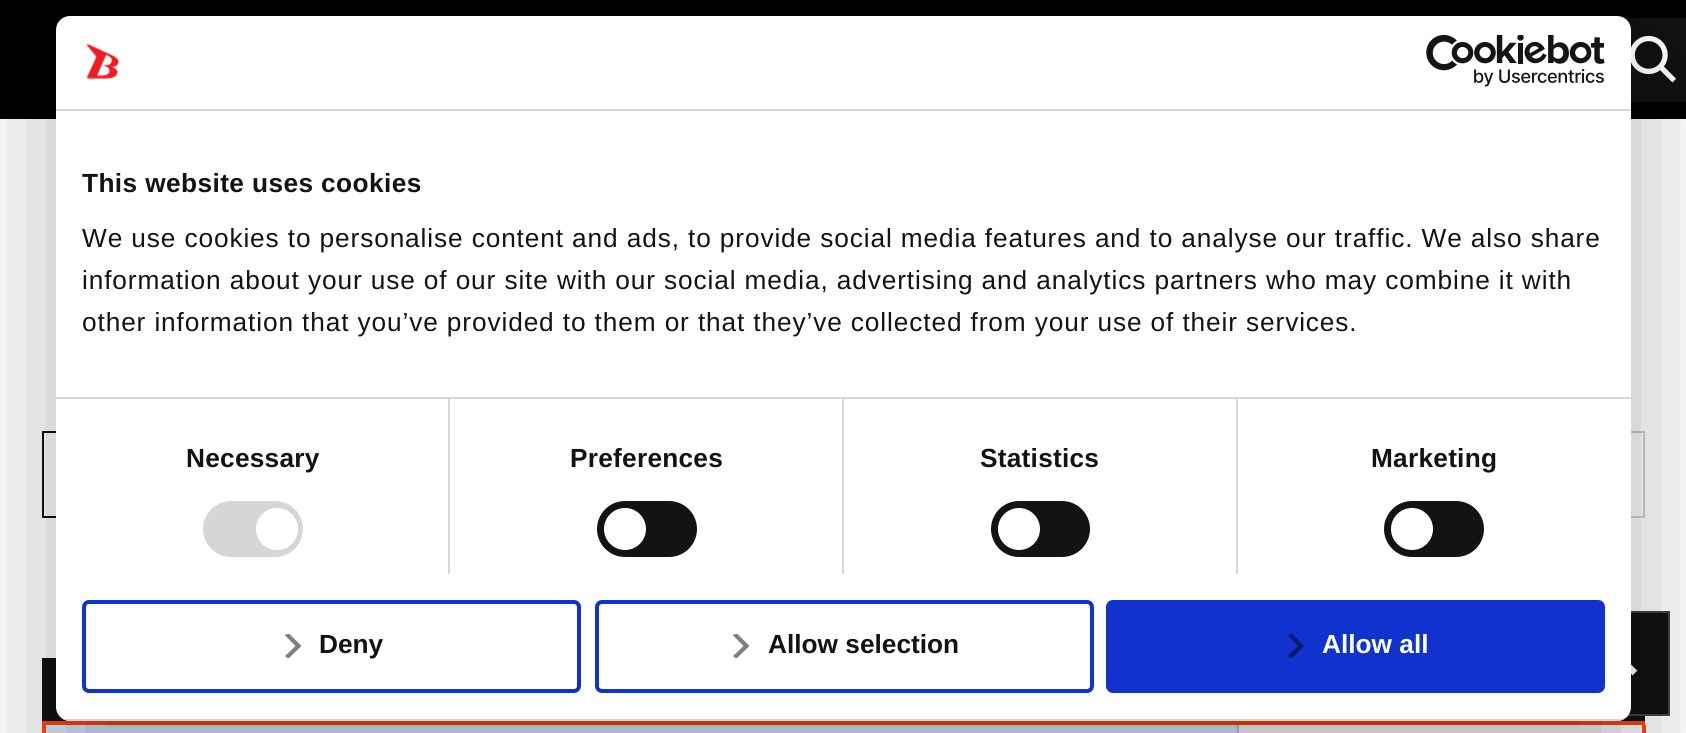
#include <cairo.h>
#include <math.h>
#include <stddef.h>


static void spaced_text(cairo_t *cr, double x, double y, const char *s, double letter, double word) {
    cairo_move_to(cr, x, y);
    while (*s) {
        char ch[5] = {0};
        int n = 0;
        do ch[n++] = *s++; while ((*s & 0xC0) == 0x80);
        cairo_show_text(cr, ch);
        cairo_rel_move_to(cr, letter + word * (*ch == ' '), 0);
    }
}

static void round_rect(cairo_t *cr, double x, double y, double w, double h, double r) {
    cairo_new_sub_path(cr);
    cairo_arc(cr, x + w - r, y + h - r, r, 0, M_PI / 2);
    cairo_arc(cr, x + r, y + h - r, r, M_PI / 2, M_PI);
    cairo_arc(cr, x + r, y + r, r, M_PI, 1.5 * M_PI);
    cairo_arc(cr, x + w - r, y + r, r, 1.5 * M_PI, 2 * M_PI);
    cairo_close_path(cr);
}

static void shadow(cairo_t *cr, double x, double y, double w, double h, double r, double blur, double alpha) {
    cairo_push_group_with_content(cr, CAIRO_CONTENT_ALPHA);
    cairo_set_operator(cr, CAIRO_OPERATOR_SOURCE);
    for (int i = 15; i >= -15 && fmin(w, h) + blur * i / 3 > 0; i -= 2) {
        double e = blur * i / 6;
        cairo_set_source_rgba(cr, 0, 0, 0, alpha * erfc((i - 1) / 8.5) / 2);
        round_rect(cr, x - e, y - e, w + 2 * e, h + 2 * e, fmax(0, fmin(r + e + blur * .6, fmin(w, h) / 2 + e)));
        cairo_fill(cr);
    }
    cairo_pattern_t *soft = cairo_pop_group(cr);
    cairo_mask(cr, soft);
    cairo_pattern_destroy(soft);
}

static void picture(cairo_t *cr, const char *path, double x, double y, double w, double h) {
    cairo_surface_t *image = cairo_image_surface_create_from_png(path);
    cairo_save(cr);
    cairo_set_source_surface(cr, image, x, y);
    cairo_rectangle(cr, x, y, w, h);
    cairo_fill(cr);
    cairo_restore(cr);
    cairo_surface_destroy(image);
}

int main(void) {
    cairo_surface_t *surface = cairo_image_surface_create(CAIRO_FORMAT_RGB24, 1686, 733);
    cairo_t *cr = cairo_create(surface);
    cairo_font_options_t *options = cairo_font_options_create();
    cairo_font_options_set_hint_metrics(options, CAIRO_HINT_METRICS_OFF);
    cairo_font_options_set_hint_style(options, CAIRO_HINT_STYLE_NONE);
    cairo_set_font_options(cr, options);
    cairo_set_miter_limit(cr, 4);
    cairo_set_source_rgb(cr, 1, 1, 1);
    cairo_paint(cr);
    cairo_set_source_rgb(cr, 0, 0, 0);
    cairo_rectangle(cr, 0, 0, 1686, 119);
    cairo_fill(cr);
    cairo_set_source_rgb(cr, 0.067, 0.067, 0.067);
    cairo_rectangle(cr, 1624, 18, 62, 84);
    cairo_fill(cr);
    picture(cr, "img1.png", 1631, 35, 45, 48);
    cairo_rectangle(cr, 43, 432, 170, 85);
    cairo_stroke(cr);
    cairo_rectangle(cr, 1475, 432, 169, 85);
    cairo_set_source_rgb(cr, 0.812, 0.812, 0.812);
    cairo_stroke(cr);
    cairo_set_source_rgb(cr, 0.067, 0.067, 0.067);
    cairo_rectangle(cr, 42, 658, 1603, 63);
    cairo_fill(cr);
    cairo_set_source_rgb(cr, 1, 0.267, 0.071);
    cairo_rectangle(cr, 42, 721, 1603, 4);
    cairo_fill(cr);
    cairo_rectangle(cr, 1642, 725, 4, 8);
    cairo_fill(cr);
    cairo_set_source_rgb(cr, 0.851, 0.937, 1);
    cairo_rectangle(cr, 44, 725, 1193, 8);
    cairo_fill(cr);
    cairo_set_source_rgb(cr, 1, 0.267, 0.071);
    cairo_rectangle(cr, 42, 725, 4, 8);
    cairo_fill(cr);
    cairo_set_source_rgb(cr, 0.8, 0.8, 0.8);
    cairo_rectangle(cr, 1237, 725, 2, 8);
    cairo_fill(cr);
    cairo_set_source_rgb(cr, 0.067, 0.067, 0.067);
    cairo_rectangle(cr, 1629, 613, 39, 101);
    cairo_fill(cr);
    cairo_rectangle(cr, 1566, 612, 103, 103);
    cairo_set_source_rgb(cr, 0.263, 0.263, 0.263);
    cairo_stroke(cr);
    cairo_new_path(cr);
    cairo_move_to(cr, 1635, 673);
    cairo_line_to(cr, 1616.5, 655);
    cairo_line_to(cr, 1598.5, 673);
    cairo_set_source_rgb(cr, 1, 1, 1);
    cairo_set_line_width(cr, 6.6);
    cairo_stroke(cr);
    cairo_set_source_rgb(cr, 0, 0, 0);
    shadow(cr, 56, 72, 1575, 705, 14, 59.5, 0.3);
    cairo_set_source_rgb(cr, 1, 1, 1);
    round_rect(cr, 56, 16, 1575, 705, 14);
    cairo_fill(cr);
    cairo_set_source_rgb(cr, 0.839, 0.839, 0.839);
    cairo_rectangle(cr, 56, 109, 1575, 2);
    cairo_fill(cr);
    picture(cr, "img2.png", 86, 43, 33, 36);
    picture(cr, "img3.png", 1426, 35, 179, 52);
    cairo_rectangle(cr, 56, 397, 1575, 2);
    cairo_fill(cr);
    cairo_select_font_face(cr, "Liberation Sans", CAIRO_FONT_SLANT_NORMAL, CAIRO_FONT_WEIGHT_BOLD);
    cairo_set_font_size(cr, 26.25);
    cairo_set_source_rgb(cr, 0.078, 0.078, 0.078);
    spaced_text(cr, 82, 192, "This website uses cookies", 0.4, 0);
    cairo_select_font_face(cr, "Liberation Sans", CAIRO_FONT_SLANT_NORMAL, CAIRO_FONT_WEIGHT_NORMAL);
    spaced_text(cr, 82, 247, "We use cookies to personalise content and ads, to provide social media features and to analyse our traffic. We also share", 0.88, 0);
    spaced_text(cr, 82, 289, "information about your use of our site with our social media, advertising and analytics partners who may combine it with", 0.88, 0);
    spaced_text(cr, 82, 331, "other information that you’ve provided to them or that they’ve collected from your use of their services.", 0.88, 0);
    cairo_set_source_rgb(cr, 0.839, 0.839, 0.839);
    cairo_rectangle(cr, 448, 399, 2, 175);
    cairo_fill(cr);
    cairo_select_font_face(cr, "Liberation Sans", CAIRO_FONT_SLANT_NORMAL, CAIRO_FONT_WEIGHT_BOLD);
    cairo_set_source_rgb(cr, 0.078, 0.078, 0.078);
    spaced_text(cr, 186, 467, "Necessary", 0.25, 0);
    cairo_set_source_rgb(cr, 0.839, 0.839, 0.839);
    round_rect(cr, 203, 501, 100, 56, 28);
    cairo_fill(cr);
    cairo_set_source_rgb(cr, 1, 1, 1);
    cairo_arc(cr, 277, 529, 21, 0, 2 * M_PI);
    cairo_fill(cr);
    cairo_set_source_rgb(cr, 0.839, 0.839, 0.839);
    cairo_rectangle(cr, 842, 399, 2, 175);
    cairo_fill(cr);
    cairo_set_source_rgb(cr, 0.078, 0.078, 0.078);
    spaced_text(cr, 570, 467, "Preferences", 0.25, 0);
    round_rect(cr, 597, 501, 100, 56, 28);
    cairo_fill(cr);
    cairo_set_source_rgb(cr, 1, 1, 1);
    cairo_arc(cr, 625, 529, 21, 0, 2 * M_PI);
    cairo_fill(cr);
    cairo_set_source_rgb(cr, 0.839, 0.839, 0.839);
    cairo_rectangle(cr, 1236, 399, 2, 175);
    cairo_fill(cr);
    cairo_set_source_rgb(cr, 0.078, 0.078, 0.078);
    spaced_text(cr, 980, 467, "Statistics", 0.25, 0);
    round_rect(cr, 991, 501, 99, 56, 28);
    cairo_fill(cr);
    cairo_set_source_rgb(cr, 1, 1, 1);
    cairo_arc(cr, 1019, 529, 21, 0, 2 * M_PI);
    cairo_fill(cr);
    cairo_set_source_rgb(cr, 0.078, 0.078, 0.078);
    spaced_text(cr, 1371, 467, "Marketing", 0.25, 0);
    round_rect(cr, 1384, 501, 100, 56, 28);
    cairo_fill(cr);
    cairo_set_source_rgb(cr, 1, 1, 1);
    cairo_arc(cr, 1412, 529, 21, 0, 2 * M_PI);
    cairo_fill(cr);
    cairo_save(cr);
    round_rect(cr, 56, 16, 1575, 705, 14);
    cairo_clip(cr);
    cairo_set_source_rgb(cr, 0.839, 0.839, 0.839);
    cairo_rectangle(cr, 56, 719, 1575, 2);
    cairo_fill(cr);
    cairo_restore(cr);
    round_rect(cr, 84, 602, 495, 89, 5);
    cairo_set_source_rgb(cr, 0.063, 0.196, 0.812);
    cairo_set_line_width(cr, 4);
    cairo_stroke(cr);
    cairo_save(cr);
    cairo_rectangle(cr, 285, 634, 16, 24);
    cairo_clip(cr);
    cairo_new_path(cr);
    cairo_move_to(cr, 286.5, 657.5);
    cairo_line_to(cr, 298.5, 646);
    cairo_line_to(cr, 286.5, 634);
    cairo_set_source_rgb(cr, 0.502, 0.502, 0.502);
    cairo_set_line_width(cr, 4.2);
    cairo_stroke(cr);
    cairo_restore(cr);
    cairo_set_source_rgb(cr, 0.078, 0.078, 0.078);
    cairo_move_to(cr, 319, 653);
    cairo_show_text(cr, "Deny");
    round_rect(cr, 597, 602, 495, 89, 5);
    cairo_set_source_rgb(cr, 0.063, 0.196, 0.812);
    cairo_stroke(cr);
    cairo_save(cr);
    cairo_rectangle(cr, 733, 634, 16, 24);
    cairo_clip(cr);
    cairo_new_path(cr);
    cairo_move_to(cr, 734.5, 657.5);
    cairo_line_to(cr, 746.5, 646);
    cairo_line_to(cr, 734.5, 634);
    cairo_set_source_rgb(cr, 0.502, 0.502, 0.502);
    cairo_set_line_width(cr, 4.2);
    cairo_stroke(cr);
    cairo_restore(cr);
    cairo_set_source_rgb(cr, 0.078, 0.078, 0.078);
    cairo_move_to(cr, 768, 653);
    cairo_show_text(cr, "Allow selection");
    cairo_set_source_rgb(cr, 0.063, 0.196, 0.812);
    round_rect(cr, 1108, 602, 495, 89, 5);
    cairo_fill_preserve(cr);
    cairo_stroke(cr);
    cairo_save(cr);
    cairo_rectangle(cr, 1288, 634, 16, 24);
    cairo_clip(cr);
    cairo_new_path(cr);
    cairo_move_to(cr, 1289.5, 657.5);
    cairo_line_to(cr, 1301, 646);
    cairo_line_to(cr, 1289.5, 634);
    cairo_set_source_rgb(cr, 0.031, 0.098, 0.408);
    cairo_set_line_width(cr, 4.2);
    cairo_stroke(cr);
    cairo_restore(cr);
    cairo_set_source_rgb(cr, 1, 1, 1);
    cairo_move_to(cr, 1322, 653);
    cairo_show_text(cr, "Allow all");
    cairo_surface_write_to_png(surface, "page.png");
    cairo_font_options_destroy(options);
    cairo_destroy(cr);
    cairo_surface_destroy(surface);
    return 0;
}
